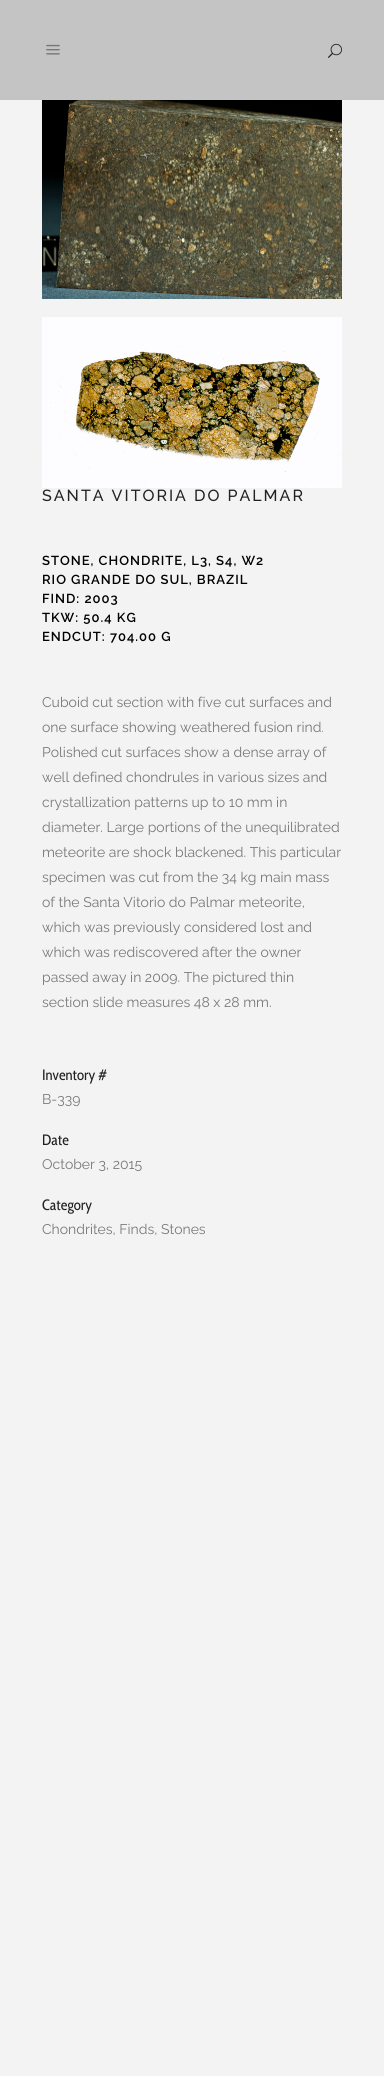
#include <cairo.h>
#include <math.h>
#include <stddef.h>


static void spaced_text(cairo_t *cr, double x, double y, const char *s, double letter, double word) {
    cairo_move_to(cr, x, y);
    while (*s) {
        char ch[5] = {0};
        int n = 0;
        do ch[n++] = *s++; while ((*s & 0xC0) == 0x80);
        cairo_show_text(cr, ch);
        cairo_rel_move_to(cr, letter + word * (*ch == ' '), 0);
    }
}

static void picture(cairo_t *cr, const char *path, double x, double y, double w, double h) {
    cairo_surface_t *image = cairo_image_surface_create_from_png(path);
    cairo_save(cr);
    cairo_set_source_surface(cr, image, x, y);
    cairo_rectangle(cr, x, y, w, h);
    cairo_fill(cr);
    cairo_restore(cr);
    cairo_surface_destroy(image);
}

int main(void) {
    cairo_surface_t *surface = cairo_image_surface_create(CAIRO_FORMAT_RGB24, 384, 2076);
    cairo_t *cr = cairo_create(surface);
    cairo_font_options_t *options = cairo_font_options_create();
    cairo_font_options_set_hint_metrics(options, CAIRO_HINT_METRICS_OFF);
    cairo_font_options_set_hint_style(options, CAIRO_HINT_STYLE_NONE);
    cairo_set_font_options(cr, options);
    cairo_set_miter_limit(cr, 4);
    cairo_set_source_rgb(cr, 0.953, 0.953, 0.953);
    cairo_paint(cr);
    cairo_set_source_rgb(cr, 0.769, 0.769, 0.769);
    cairo_rectangle(cr, 0, 0, 384, 100);
    cairo_fill(cr);
    picture(cr, "img1.png", 46, 44, 14, 11);
    picture(cr, "img2.png", 328, 43, 14, 15);
    picture(cr, "img3.png", 42, 100, 300, 199);
    picture(cr, "img4.png", 42, 317, 300, 171);
    cairo_select_font_face(cr, "Raleway Medium", CAIRO_FONT_SLANT_NORMAL, CAIRO_FONT_WEIGHT_NORMAL);
    cairo_set_font_size(cr, 16);
    cairo_set_source_rgb(cr, 0.133, 0.133, 0.133);
    spaced_text(cr, 42, 501, "SANTA VITORIA DO PALMAR", 2, 0);
    cairo_select_font_face(cr, "Raleway SemiBold", CAIRO_FONT_SLANT_NORMAL, CAIRO_FONT_WEIGHT_NORMAL);
    cairo_set_font_size(cr, 13);
    cairo_set_source_rgb(cr, 0, 0, 0);
    spaced_text(cr, 42, 565, "STONE, CHONDRITE, L3, S4, W2", 1, 0);
    spaced_text(cr, 42, 584, "RIO GRANDE DO SUL, BRAZIL", 1, 0);
    spaced_text(cr, 42, 603, "FIND: 2003", 1, 0);
    spaced_text(cr, 42, 622, "TKW: 50.4 KG", 1, 0);
    spaced_text(cr, 42, 641, "ENDCUT: 704.00 G", 1, 0);
    cairo_select_font_face(cr, "Raleway", CAIRO_FONT_SLANT_NORMAL, CAIRO_FONT_WEIGHT_NORMAL);
    cairo_set_font_size(cr, 14);
    cairo_set_source_rgb(cr, 0.475, 0.475, 0.475);
    cairo_move_to(cr, 42, 707);
    cairo_show_text(cr, "Cuboid cut section with five cut surfaces and");
    cairo_move_to(cr, 42, 732);
    cairo_show_text(cr, "one surface showing weathered fusion rind.");
    cairo_move_to(cr, 42, 757);
    cairo_show_text(cr, "Polished cut surfaces show a dense array of");
    cairo_move_to(cr, 42, 782);
    cairo_show_text(cr, "well defined chondrules in various sizes and");
    cairo_move_to(cr, 42, 807);
    cairo_show_text(cr, "crystallization patterns up to 10 mm in");
    cairo_move_to(cr, 42, 832);
    cairo_show_text(cr, "diameter. Large portions of the unequilibrated");
    cairo_move_to(cr, 42, 857);
    cairo_show_text(cr, "meteorite are shock blackened. This particular");
    cairo_move_to(cr, 42, 882);
    cairo_show_text(cr, "specimen was cut from the 34 kg main mass");
    cairo_move_to(cr, 42, 907);
    cairo_show_text(cr, "of the Santa Vitorio do Palmar meteorite,");
    cairo_move_to(cr, 42, 932);
    cairo_show_text(cr, "which was previously considered lost and");
    cairo_move_to(cr, 42, 957);
    cairo_show_text(cr, "which was rediscovered after the owner");
    cairo_move_to(cr, 42, 982);
    cairo_show_text(cr, "passed away in 2009. The pictured thin");
    cairo_move_to(cr, 42, 1007);
    cairo_show_text(cr, "section slide measures 48 x 28 mm.");
    cairo_select_font_face(cr, "Cabin Condensed", CAIRO_FONT_SLANT_NORMAL, CAIRO_FONT_WEIGHT_NORMAL);
    cairo_set_font_size(cr, 15);
    cairo_set_source_rgb(cr, 0.133, 0.133, 0.133);
    cairo_move_to(cr, 42, 1080);
    cairo_show_text(cr, "Inventory #");
    cairo_select_font_face(cr, "Raleway", CAIRO_FONT_SLANT_NORMAL, CAIRO_FONT_WEIGHT_NORMAL);
    cairo_set_font_size(cr, 14);
    cairo_set_source_rgb(cr, 0.475, 0.475, 0.475);
    cairo_move_to(cr, 42, 1104);
    cairo_show_text(cr, "B-339");
    cairo_select_font_face(cr, "Cabin Condensed", CAIRO_FONT_SLANT_NORMAL, CAIRO_FONT_WEIGHT_NORMAL);
    cairo_set_font_size(cr, 15);
    cairo_set_source_rgb(cr, 0.133, 0.133, 0.133);
    cairo_move_to(cr, 42, 1145);
    cairo_show_text(cr, "Date");
    cairo_select_font_face(cr, "Raleway", CAIRO_FONT_SLANT_NORMAL, CAIRO_FONT_WEIGHT_NORMAL);
    cairo_set_font_size(cr, 14);
    cairo_set_source_rgb(cr, 0.475, 0.475, 0.475);
    cairo_move_to(cr, 42, 1169);
    cairo_show_text(cr, "October 3, 2015");
    cairo_select_font_face(cr, "Cabin Condensed", CAIRO_FONT_SLANT_NORMAL, CAIRO_FONT_WEIGHT_NORMAL);
    cairo_set_font_size(cr, 15);
    cairo_set_source_rgb(cr, 0.133, 0.133, 0.133);
    cairo_move_to(cr, 42, 1210);
    cairo_show_text(cr, "Category");
    cairo_select_font_face(cr, "Raleway", CAIRO_FONT_SLANT_NORMAL, CAIRO_FONT_WEIGHT_NORMAL);
    cairo_set_font_size(cr, 14);
    cairo_set_source_rgb(cr, 0.475, 0.475, 0.475);
    cairo_move_to(cr, 42, 1234);
    cairo_show_text(cr, "Chondrites, Finds, Stones");
    cairo_surface_write_to_png(surface, "page.png");
    cairo_font_options_destroy(options);
    cairo_destroy(cr);
    cairo_surface_destroy(surface);
    return 0;
}
